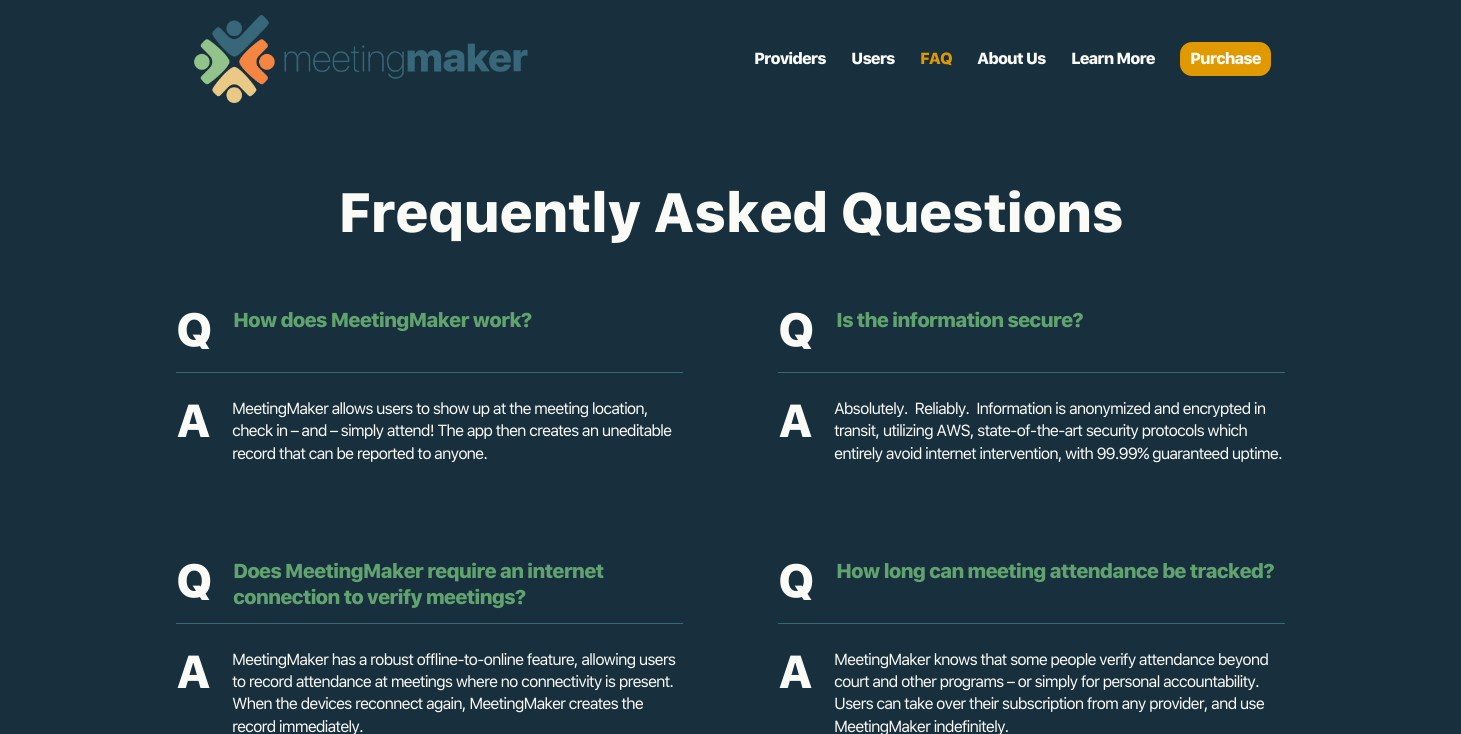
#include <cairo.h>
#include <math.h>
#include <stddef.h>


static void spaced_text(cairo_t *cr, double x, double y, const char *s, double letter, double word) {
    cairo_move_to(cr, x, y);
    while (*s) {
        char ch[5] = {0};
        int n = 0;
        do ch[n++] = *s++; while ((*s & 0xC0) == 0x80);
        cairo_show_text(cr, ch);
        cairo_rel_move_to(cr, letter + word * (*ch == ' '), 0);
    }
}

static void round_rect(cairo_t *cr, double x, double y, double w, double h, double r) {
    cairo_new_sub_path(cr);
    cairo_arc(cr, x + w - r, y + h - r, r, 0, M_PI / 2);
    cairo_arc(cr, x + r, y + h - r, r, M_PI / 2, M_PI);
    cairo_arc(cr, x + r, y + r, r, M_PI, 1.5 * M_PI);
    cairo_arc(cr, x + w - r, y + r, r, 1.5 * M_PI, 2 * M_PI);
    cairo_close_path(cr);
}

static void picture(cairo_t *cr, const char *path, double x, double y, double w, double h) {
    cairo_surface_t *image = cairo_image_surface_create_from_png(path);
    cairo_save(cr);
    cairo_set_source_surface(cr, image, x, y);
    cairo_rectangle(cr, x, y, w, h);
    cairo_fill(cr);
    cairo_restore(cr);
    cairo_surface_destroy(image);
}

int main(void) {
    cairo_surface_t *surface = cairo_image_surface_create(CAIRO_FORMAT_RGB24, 1461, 734);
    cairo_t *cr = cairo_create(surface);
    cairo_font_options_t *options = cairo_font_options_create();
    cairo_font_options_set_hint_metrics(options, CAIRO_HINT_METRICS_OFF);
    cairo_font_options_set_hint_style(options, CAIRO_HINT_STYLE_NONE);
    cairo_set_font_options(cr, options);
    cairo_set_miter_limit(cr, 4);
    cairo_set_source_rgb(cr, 0.094, 0.188, 0.239);
    cairo_paint(cr);
    picture(cr, "img1.png", 194, 15, 334, 88);
    cairo_select_font_face(cr, "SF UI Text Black", CAIRO_FONT_SLANT_NORMAL, CAIRO_FONT_WEIGHT_NORMAL);
    cairo_set_font_size(cr, 16);
    cairo_set_source_rgb(cr, 0.98, 0.98, 0.961);
    spaced_text(cr, 754, 64, "Providers", -1, 0);
    spaced_text(cr, 851, 64, "Users", -1, 0);
    cairo_set_source_rgb(cr, 0.878, 0.6, 0);
    spaced_text(cr, 920, 64, "FAQ", -1, 0);
    cairo_set_source_rgb(cr, 0.98, 0.98, 0.961);
    spaced_text(cr, 977, 64, "About Us", -1, 0);
    spaced_text(cr, 1071, 64, "Learn More", -1, 0);
    cairo_set_source_rgb(cr, 0.878, 0.6, 0);
    round_rect(cr, 1180, 42, 91, 34, 12);
    cairo_fill(cr);
    cairo_set_source_rgb(cr, 0.98, 0.98, 0.961);
    spaced_text(cr, 1190, 64, "Purchase", -1, 0);
    cairo_set_font_size(cr, 55);
    spaced_text(cr, 338, 232, "Frequently Asked Questions", -1, 0);
    cairo_set_font_size(cr, 46);
    spaced_text(cr, 176, 346, "Q", -1, 0);
    cairo_set_font_size(cr, 20);
    cairo_set_source_rgb(cr, 0.38, 0.639, 0.431);
    spaced_text(cr, 233, 327, "How does MeetingMaker work?", -1, 0);
    cairo_set_source_rgb(cr, 0.224, 0.404, 0.475);
    cairo_rectangle(cr, 176, 372, 507, 1);
    cairo_fill(cr);
    cairo_set_font_size(cr, 46);
    cairo_set_source_rgb(cr, 0.98, 0.98, 0.961);
    spaced_text(cr, 176, 437, "A", -1, 0);
    cairo_select_font_face(cr, "SF UI Text", CAIRO_FONT_SLANT_NORMAL, CAIRO_FONT_WEIGHT_NORMAL);
    cairo_set_font_size(cr, 16);
    spaced_text(cr, 232, 414, "MeetingMaker allows users to show up at the meeting location,", -1, 0);
    spaced_text(cr, 232, 436, "check in – and – simply attend! The app then creates an uneditable", -1, 0);
    spaced_text(cr, 232, 459, "record that can be reported to anyone.", -1, 0);
    cairo_select_font_face(cr, "SF UI Text Black", CAIRO_FONT_SLANT_NORMAL, CAIRO_FONT_WEIGHT_NORMAL);
    cairo_set_font_size(cr, 46);
    spaced_text(cr, 778, 346, "Q", -1, 0);
    cairo_set_font_size(cr, 20);
    cairo_set_source_rgb(cr, 0.38, 0.639, 0.431);
    spaced_text(cr, 836, 327, "Is the information secure?", -1, 0);
    cairo_set_source_rgb(cr, 0.224, 0.404, 0.475);
    cairo_rectangle(cr, 778, 372, 507, 1);
    cairo_fill(cr);
    cairo_set_font_size(cr, 46);
    cairo_set_source_rgb(cr, 0.98, 0.98, 0.961);
    spaced_text(cr, 778, 437, "A", -1, 0);
    cairo_select_font_face(cr, "SF UI Text", CAIRO_FONT_SLANT_NORMAL, CAIRO_FONT_WEIGHT_NORMAL);
    cairo_set_font_size(cr, 16);
    spaced_text(cr, 834, 414, "Absolutely.  Reliably.  Information is anonymized and encrypted in", -1, 0);
    spaced_text(cr, 834, 436, "transit, utilizing AWS, state-of-the-art security protocols which", -1, 0);
    spaced_text(cr, 834, 459, "entirely avoid internet intervention, with 99.99% guaranteed uptime.", -1, 0);
    cairo_select_font_face(cr, "SF UI Text Black", CAIRO_FONT_SLANT_NORMAL, CAIRO_FONT_WEIGHT_NORMAL);
    cairo_set_font_size(cr, 46);
    spaced_text(cr, 176, 597, "Q", -1, 0);
    cairo_set_font_size(cr, 20);
    cairo_set_source_rgb(cr, 0.38, 0.639, 0.431);
    spaced_text(cr, 233, 578, "Does MeetingMaker require an internet", -1, 0);
    spaced_text(cr, 233, 604, "connection to verify meetings?", -1, 0);
    cairo_set_source_rgb(cr, 0.224, 0.404, 0.475);
    cairo_rectangle(cr, 176, 623, 507, 1);
    cairo_fill(cr);
    cairo_set_font_size(cr, 46);
    cairo_set_source_rgb(cr, 0.98, 0.98, 0.961);
    spaced_text(cr, 176, 688, "A", -1, 0);
    cairo_select_font_face(cr, "SF UI Text", CAIRO_FONT_SLANT_NORMAL, CAIRO_FONT_WEIGHT_NORMAL);
    cairo_set_font_size(cr, 16);
    spaced_text(cr, 232, 665, "MeetingMaker has a robust offline-to-online feature, allowing users", -1, 0);
    spaced_text(cr, 232, 687, "to record attendance at meetings where no connectivity is present.", -1, 0);
    spaced_text(cr, 232, 709, "When the devices reconnect again, MeetingMaker creates the", -1, 0);
    spaced_text(cr, 232, 732, "record immediately.", -1, 0);
    cairo_select_font_face(cr, "SF UI Text Black", CAIRO_FONT_SLANT_NORMAL, CAIRO_FONT_WEIGHT_NORMAL);
    cairo_set_font_size(cr, 46);
    spaced_text(cr, 778, 597, "Q", -1, 0);
    cairo_set_font_size(cr, 20);
    cairo_set_source_rgb(cr, 0.38, 0.639, 0.431);
    spaced_text(cr, 836, 578, "How long can meeting attendance be tracked?", -1, 0);
    cairo_set_source_rgb(cr, 0.224, 0.404, 0.475);
    cairo_rectangle(cr, 778, 623, 507, 1);
    cairo_fill(cr);
    cairo_set_font_size(cr, 46);
    cairo_set_source_rgb(cr, 0.98, 0.98, 0.961);
    spaced_text(cr, 778, 688, "A", -1, 0);
    cairo_select_font_face(cr, "SF UI Text", CAIRO_FONT_SLANT_NORMAL, CAIRO_FONT_WEIGHT_NORMAL);
    cairo_set_font_size(cr, 16);
    spaced_text(cr, 834, 665, "MeetingMaker knows that some people verify attendance beyond", -1, 0);
    spaced_text(cr, 834, 687, "court and other programs – or simply for personal accountability.", -1, 0);
    spaced_text(cr, 834, 709, "Users can take over their subscription from any provider, and use", -1, 0);
    spaced_text(cr, 834, 732, "MeetingMaker indefinitely.", -1, 0);
    cairo_surface_write_to_png(surface, "page.png");
    cairo_font_options_destroy(options);
    cairo_destroy(cr);
    cairo_surface_destroy(surface);
    return 0;
}
